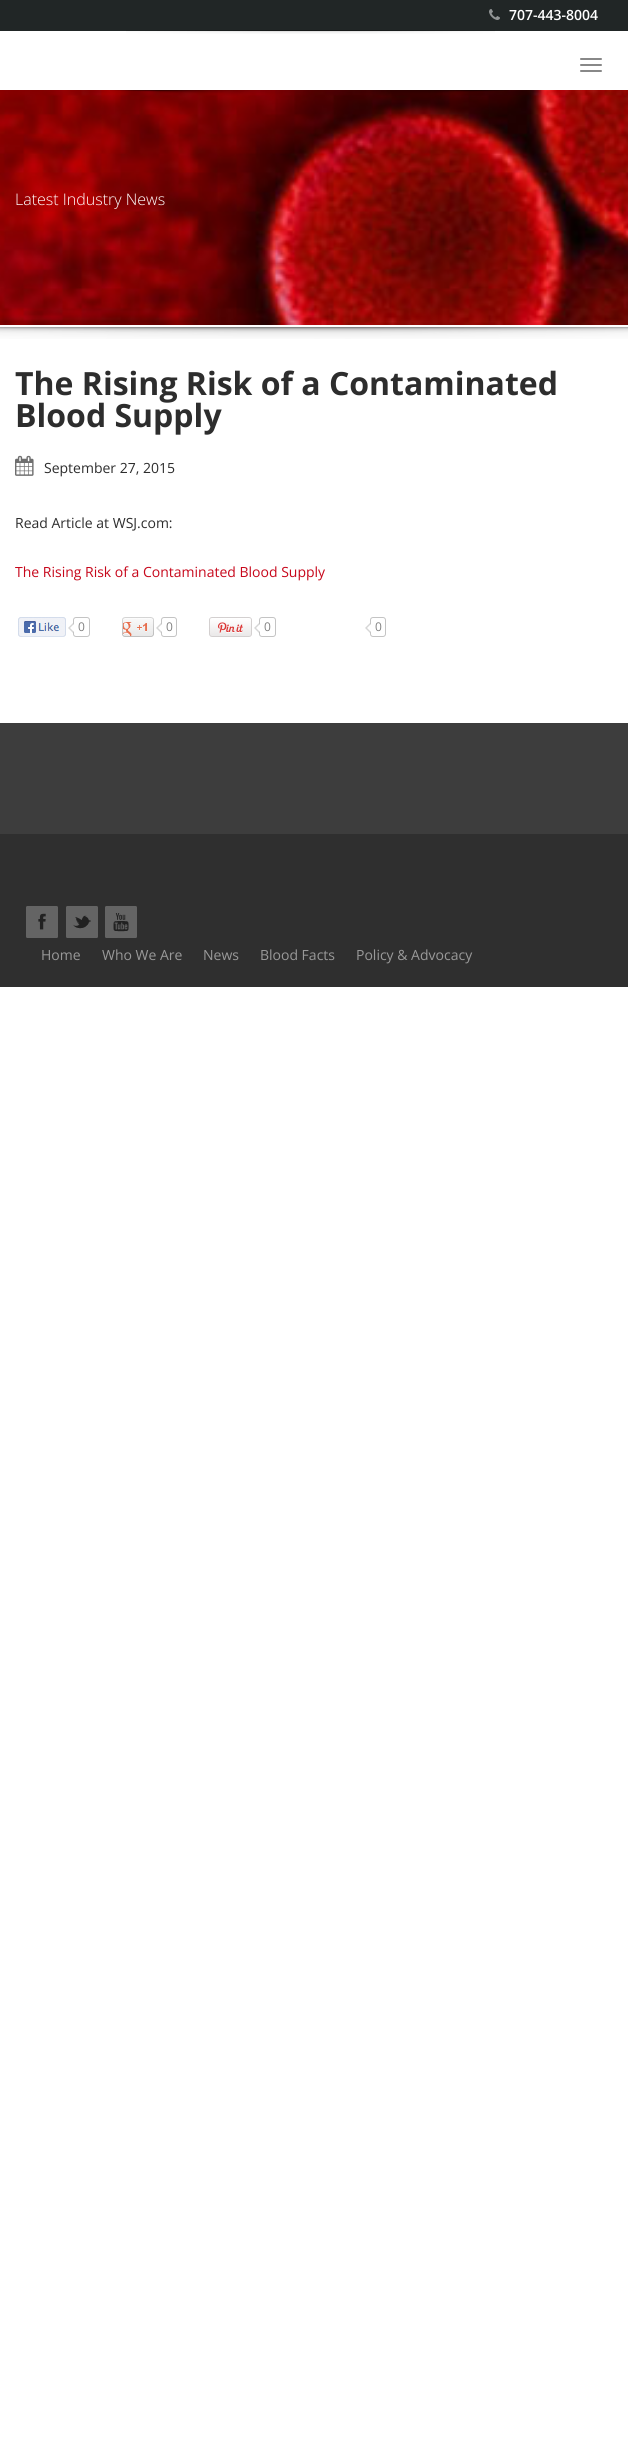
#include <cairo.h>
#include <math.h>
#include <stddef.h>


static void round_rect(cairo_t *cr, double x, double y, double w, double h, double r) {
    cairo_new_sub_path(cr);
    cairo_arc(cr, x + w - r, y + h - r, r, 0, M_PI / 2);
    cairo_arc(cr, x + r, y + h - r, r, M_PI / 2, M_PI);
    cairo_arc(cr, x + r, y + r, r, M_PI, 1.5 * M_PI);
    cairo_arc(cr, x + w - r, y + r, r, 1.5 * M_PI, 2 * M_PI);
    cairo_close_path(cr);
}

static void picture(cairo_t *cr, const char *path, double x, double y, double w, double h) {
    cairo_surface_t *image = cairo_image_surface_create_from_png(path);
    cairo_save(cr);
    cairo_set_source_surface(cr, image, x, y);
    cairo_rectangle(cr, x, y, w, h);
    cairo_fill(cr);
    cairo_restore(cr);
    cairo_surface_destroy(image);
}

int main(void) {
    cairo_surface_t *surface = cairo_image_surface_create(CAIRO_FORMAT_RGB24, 628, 2457);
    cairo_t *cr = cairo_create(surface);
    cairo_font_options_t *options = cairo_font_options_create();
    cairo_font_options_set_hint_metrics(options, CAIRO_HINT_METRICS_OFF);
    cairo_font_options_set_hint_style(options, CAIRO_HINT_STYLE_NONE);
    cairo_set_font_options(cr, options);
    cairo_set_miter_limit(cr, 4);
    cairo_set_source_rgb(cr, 1, 1, 1);
    cairo_paint(cr);
    cairo_set_source_rgb(cr, 0.129, 0.149, 0.149);
    cairo_rectangle(cr, 0, 0, 628, 31);
    cairo_fill(cr);
    picture(cr, "img1.png", 489, 9, 11, 11);
    cairo_select_font_face(cr, "Open Sans SemiBold", CAIRO_FONT_SLANT_NORMAL, CAIRO_FONT_WEIGHT_NORMAL);
    cairo_set_font_size(cr, 14);
    cairo_set_source_rgb(cr, 1, 1, 1);
    cairo_move_to(cr, 509, 20);
    cairo_show_text(cr, "707-443-8004");
    picture(cr, "img2.png", 126, 30, 369, 4);
    cairo_set_source_rgb(cr, 0.533, 0.533, 0.533);
    round_rect(cr, 580, 58, 22, 2, 1);
    cairo_fill(cr);
    round_rect(cr, 580, 64, 22, 2, 1);
    cairo_fill(cr);
    round_rect(cr, 580, 70, 22, 2, 1);
    cairo_fill(cr);
    picture(cr, "img4.png", 0, 90, 628, 235);
    picture(cr, "img3.png", 110, 90, 399, 4);
    cairo_select_font_face(cr, "Open Sans Light", CAIRO_FONT_SLANT_NORMAL, CAIRO_FONT_WEIGHT_NORMAL);
    cairo_set_font_size(cr, 16);
    cairo_set_source_rgb(cr, 1, 1, 1);
    cairo_move_to(cr, 15, 205);
    cairo_show_text(cr, "Latest Industry News");
    picture(cr, "img5.png", 0, 327, 628, 12);
    cairo_select_font_face(cr, "Open Sans", CAIRO_FONT_SLANT_NORMAL, CAIRO_FONT_WEIGHT_BOLD);
    cairo_set_font_size(cr, 32);
    cairo_set_source_rgb(cr, 0.176, 0.176, 0.176);
    cairo_move_to(cr, 15, 395);
    cairo_show_text(cr, "The Rising Risk of a Contaminated");
    cairo_move_to(cr, 15, 427);
    cairo_show_text(cr, "Blood Supply");
    picture(cr, "img6.png", 15, 455, 19, 21);
    cairo_select_font_face(cr, "Open Sans", CAIRO_FONT_SLANT_NORMAL, CAIRO_FONT_WEIGHT_NORMAL);
    cairo_set_font_size(cr, 14);
    cairo_move_to(cr, 44, 473);
    cairo_show_text(cr, "September 27, 2015");
    cairo_move_to(cr, 15, 528);
    cairo_show_text(cr, "Read Article at WSJ.com:");
    cairo_set_source_rgb(cr, 0.78, 0.031, 0.106);
    cairo_move_to(cr, 15, 577);
    cairo_show_text(cr, "The Rising Risk of a Contaminated Blood Supply");
    picture(cr, "img7.png", 18, 617, 48, 20);
    round_rect(cr, 73.5, 617.5, 16, 19, 2.5);
    cairo_set_source_rgb(cr, 0.769, 0.769, 0.769);
    cairo_set_line_width(cr, 1);
    cairo_stroke(cr);
    cairo_set_source_rgb(cr, 0.839, 0.839, 0.839);
    cairo_new_path(cr);
    cairo_move_to(cr, 73, 623);
    cairo_line_to(cr, 73, 633);
    cairo_line_to(cr, 68, 628);
    cairo_close_path(cr);
    cairo_fill(cr);
    cairo_set_font_size(cr, 12);
    cairo_set_source_rgb(cr, 0.502, 0.502, 0.502);
    cairo_move_to(cr, 78, 631);
    cairo_show_text(cr, "0");
    cairo_set_source_rgb(cr, 1, 1, 1);
    cairo_new_path(cr);
    cairo_move_to(cr, 75, 623);
    cairo_line_to(cr, 75, 633);
    cairo_line_to(cr, 70, 628);
    cairo_close_path(cr);
    cairo_fill(cr);
    picture(cr, "img8.png", 122, 617, 32, 20);
    round_rect(cr, 161.5, 617.5, 15, 19, 2.5);
    cairo_set_source_rgb(cr, 0.769, 0.769, 0.769);
    cairo_stroke(cr);
    cairo_set_source_rgb(cr, 0.839, 0.839, 0.839);
    cairo_new_path(cr);
    cairo_move_to(cr, 161, 623);
    cairo_line_to(cr, 161, 633);
    cairo_line_to(cr, 156, 628);
    cairo_close_path(cr);
    cairo_fill(cr);
    cairo_set_source_rgb(cr, 0.502, 0.502, 0.502);
    cairo_move_to(cr, 166, 631);
    cairo_show_text(cr, "0");
    cairo_set_source_rgb(cr, 1, 1, 1);
    cairo_new_path(cr);
    cairo_move_to(cr, 163, 623);
    cairo_line_to(cr, 163, 633);
    cairo_line_to(cr, 158, 628);
    cairo_close_path(cr);
    cairo_fill(cr);
    picture(cr, "img9.png", 209, 617, 43, 20);
    round_rect(cr, 259.5, 617.5, 16, 19, 2.5);
    cairo_set_source_rgb(cr, 0.769, 0.769, 0.769);
    cairo_stroke(cr);
    cairo_set_source_rgb(cr, 0.839, 0.839, 0.839);
    cairo_new_path(cr);
    cairo_move_to(cr, 259, 623);
    cairo_line_to(cr, 259, 633);
    cairo_line_to(cr, 254, 628);
    cairo_close_path(cr);
    cairo_fill(cr);
    cairo_set_source_rgb(cr, 0.502, 0.502, 0.502);
    cairo_move_to(cr, 264, 631);
    cairo_show_text(cr, "0");
    cairo_set_source_rgb(cr, 1, 1, 1);
    cairo_new_path(cr);
    cairo_move_to(cr, 261, 623);
    cairo_line_to(cr, 261, 633);
    cairo_line_to(cr, 256, 628);
    cairo_close_path(cr);
    cairo_fill(cr);
    round_rect(cr, 370.5, 617.5, 15, 19, 2.5);
    cairo_set_source_rgb(cr, 0.769, 0.769, 0.769);
    cairo_stroke(cr);
    cairo_set_source_rgb(cr, 0.839, 0.839, 0.839);
    cairo_new_path(cr);
    cairo_move_to(cr, 370, 623);
    cairo_line_to(cr, 370, 633);
    cairo_line_to(cr, 365, 628);
    cairo_close_path(cr);
    cairo_fill(cr);
    cairo_set_source_rgb(cr, 0.502, 0.502, 0.502);
    cairo_move_to(cr, 375, 631);
    cairo_show_text(cr, "0");
    cairo_set_source_rgb(cr, 1, 1, 1);
    cairo_new_path(cr);
    cairo_move_to(cr, 372, 623);
    cairo_line_to(cr, 372, 633);
    cairo_line_to(cr, 367, 628);
    cairo_close_path(cr);
    cairo_fill(cr);
    cairo_set_source_rgb(cr, 0.239, 0.239, 0.239);
    cairo_rectangle(cr, 0, 723, 628, 111);
    cairo_fill(cr);
    cairo_set_source_rgb(cr, 0.184, 0.184, 0.184);
    cairo_rectangle(cr, 0, 834, 628, 153);
    cairo_fill(cr);
    picture(cr, "img10.png", 26, 906, 32, 32);
    picture(cr, "img11.png", 66, 906, 32, 32);
    picture(cr, "img12.png", 105, 906, 32, 32);
    cairo_set_font_size(cr, 14);
    cairo_set_source_rgb(cr, 0.6, 0.6, 0.6);
    cairo_move_to(cr, 41, 960);
    cairo_show_text(cr, "Home");
    cairo_move_to(cr, 102, 960);
    cairo_show_text(cr, "Who We Are");
    cairo_move_to(cr, 203, 960);
    cairo_show_text(cr, "News");
    cairo_move_to(cr, 260, 960);
    cairo_show_text(cr, "Blood Facts");
    cairo_move_to(cr, 356, 960);
    cairo_show_text(cr, "Policy & Advocacy");
    cairo_surface_write_to_png(surface, "page.png");
    cairo_font_options_destroy(options);
    cairo_destroy(cr);
    cairo_surface_destroy(surface);
    return 0;
}
